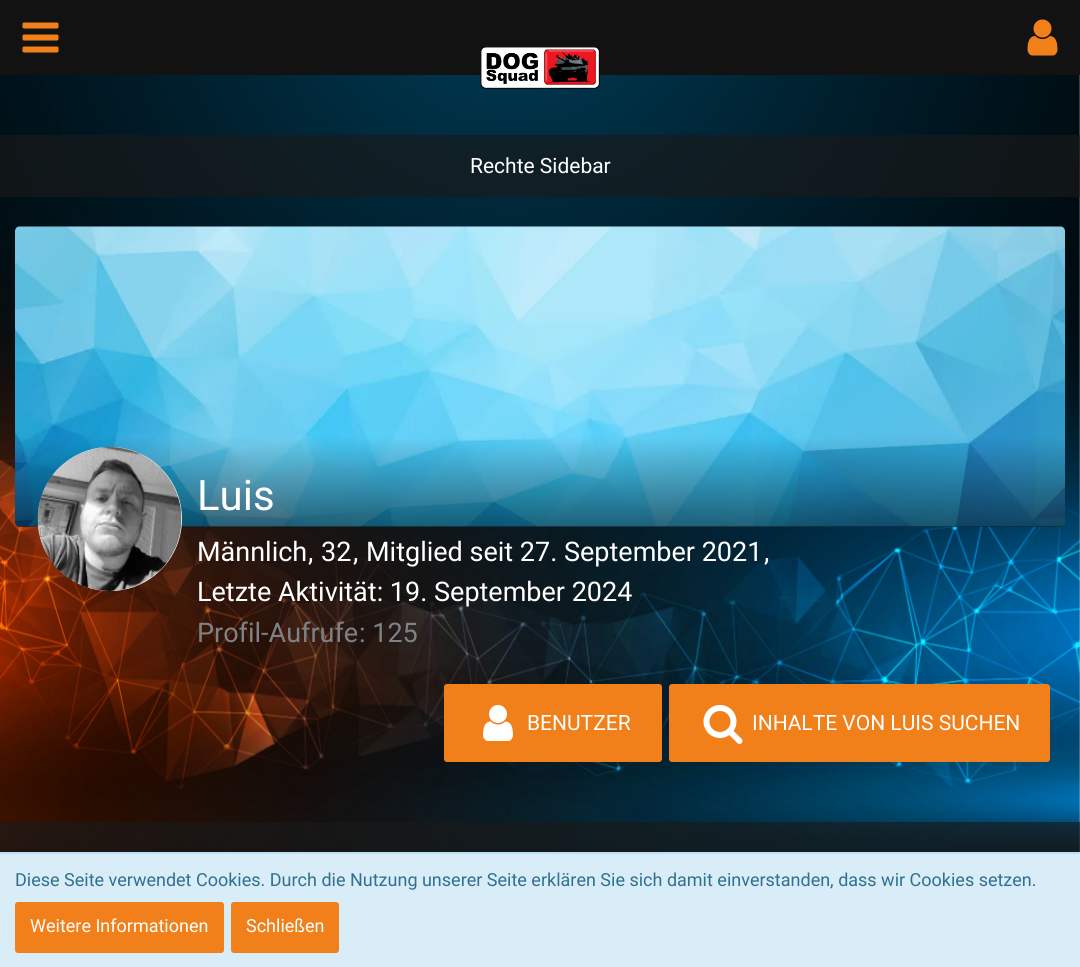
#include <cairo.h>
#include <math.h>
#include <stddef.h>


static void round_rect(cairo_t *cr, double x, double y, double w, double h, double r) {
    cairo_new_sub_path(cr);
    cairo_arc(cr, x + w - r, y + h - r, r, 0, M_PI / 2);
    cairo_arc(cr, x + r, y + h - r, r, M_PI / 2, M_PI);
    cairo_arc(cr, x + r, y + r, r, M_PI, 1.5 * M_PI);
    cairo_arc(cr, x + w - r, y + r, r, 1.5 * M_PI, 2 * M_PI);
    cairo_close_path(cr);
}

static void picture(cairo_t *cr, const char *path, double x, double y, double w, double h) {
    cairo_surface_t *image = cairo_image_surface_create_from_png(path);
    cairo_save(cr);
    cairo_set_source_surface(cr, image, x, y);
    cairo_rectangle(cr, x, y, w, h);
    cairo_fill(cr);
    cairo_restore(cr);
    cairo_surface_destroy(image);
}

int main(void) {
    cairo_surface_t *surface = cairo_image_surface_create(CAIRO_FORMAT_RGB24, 1080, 967);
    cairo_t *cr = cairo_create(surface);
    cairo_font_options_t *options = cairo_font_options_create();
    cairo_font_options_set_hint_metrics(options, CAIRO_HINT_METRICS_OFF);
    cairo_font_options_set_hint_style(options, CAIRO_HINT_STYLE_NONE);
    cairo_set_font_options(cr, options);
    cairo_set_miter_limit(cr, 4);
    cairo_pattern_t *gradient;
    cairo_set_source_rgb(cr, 1, 1, 1);
    cairo_paint(cr);
    cairo_set_source_rgb(cr, 0.071, 0.071, 0.071);
    cairo_rectangle(cr, 0, 0, 1080, 75);
    cairo_fill(cr);
    picture(cr, "img1.png", 22, 22, 37, 31);
    picture(cr, "img2.png", 1027, 19, 31, 37);
    picture(cr, "img4.png", 0, 75, 1080, 777);
    picture(cr, "img3.png", 480, 46, 120, 43);
    cairo_set_source_rgba(cr, 0.102, 0.102, 0.102, 0.65);
    cairo_rectangle(cr, 0, 135, 1080, 62);
    cairo_fill(cr);
    cairo_select_font_face(cr, "Roboto", CAIRO_FONT_SLANT_NORMAL, CAIRO_FONT_WEIGHT_NORMAL);
    cairo_set_font_size(cr, 21);
    cairo_set_source_rgb(cr, 1, 1, 1);
    cairo_move_to(cr, 470, 173);
    cairo_show_text(cr, "Rechte Sidebar");
    picture(cr, "img5.png", 15, 226, 1050, 301);
    gradient = cairo_pattern_create_linear(540, 226, 540, 527);
    cairo_pattern_add_color_stop_rgba(gradient, 0.7, 0, 0, 0, 0);
    cairo_pattern_add_color_stop_rgba(gradient, 1, 0, 0, 0, 0.5);
    cairo_set_source(cr, gradient);
    cairo_pattern_destroy(gradient);
    cairo_new_path(cr);
    cairo_move_to(cr, 15, 227);
    cairo_line_to(cr, 1065, 227);
    cairo_line_to(cr, 1065, 522);
    cairo_curve_to(cr, 1065, 525, 1063, 527, 1060, 527);
    cairo_line_to(cr, 20, 527);
    cairo_curve_to(cr, 17, 527, 15, 525, 15, 522);
    cairo_close_path(cr);
    cairo_fill(cr);
    cairo_set_source_rgb(cr, 1, 1, 1);
    cairo_arc(cr, 110, 519, 72, 0, 2 * M_PI);
    cairo_fill(cr);
    picture(cr, "img6.png", 37, 447, 145, 144);
    cairo_set_font_size(cr, 42);
    cairo_move_to(cr, 197, 510);
    cairo_show_text(cr, "Luis");
    cairo_set_font_size(cr, 27);
    cairo_move_to(cr, 197, 561);
    cairo_show_text(cr, "Männlich");
    cairo_move_to(cr, 308, 561);
    cairo_show_text(cr, ",");
    cairo_move_to(cr, 321, 561);
    cairo_show_text(cr, "32");
    cairo_move_to(cr, 353, 561);
    cairo_show_text(cr, ",");
    cairo_move_to(cr, 366, 561);
    cairo_show_text(cr, "Mitglied seit 27. September 2021");
    cairo_move_to(cr, 764, 561);
    cairo_show_text(cr, ",");
    cairo_move_to(cr, 197, 601);
    cairo_show_text(cr, "Letzte Aktivität: 19. September 2024");
    cairo_set_source_rgb(cr, 0.49, 0.51, 0.529);
    cairo_move_to(cr, 197, 642);
    cairo_show_text(cr, "Profil-Aufrufe");
    cairo_move_to(cr, 359, 642);
    cairo_show_text(cr, ": 125");
    cairo_set_source_rgb(cr, 0.945, 0.498, 0.102);
    round_rect(cr, 445.5, 685.5, 215, 75, 1.5);
    cairo_fill_preserve(cr);
    cairo_set_line_width(cr, 3);
    cairo_stroke(cr);
    picture(cr, "img7.png", 483, 705, 30, 36);
    cairo_set_font_size(cr, 21);
    cairo_set_source_rgb(cr, 1, 1, 1);
    cairo_move_to(cr, 527, 730);
    cairo_show_text(cr, "BENUTZER");
    cairo_set_source_rgb(cr, 0.945, 0.498, 0.102);
    round_rect(cr, 670.5, 685.5, 378, 75, 1.5);
    cairo_fill_preserve(cr);
    cairo_stroke(cr);
    picture(cr, "img8.png", 703, 705, 40, 39);
    cairo_set_source_rgb(cr, 1, 1, 1);
    cairo_move_to(cr, 752, 730);
    cairo_show_text(cr, "INHALTE VON LUIS SUCHEN");
    cairo_set_source_rgba(cr, 0.102, 0.102, 0.102, 0.65);
    cairo_rectangle(cr, 0, 822, 1080, 30);
    cairo_fill(cr);
    cairo_set_source_rgb(cr, 0.851, 0.929, 0.969);
    cairo_rectangle(cr, 0, 854, 1080, 113);
    cairo_fill(cr);
    cairo_set_source_rgb(cr, 0.737, 0.875, 0.945);
    cairo_rectangle(cr, 0, 852, 1080, 2);
    cairo_fill(cr);
    cairo_set_font_size(cr, 18);
    cairo_set_source_rgb(cr, 0.192, 0.439, 0.561);
    cairo_move_to(cr, 15, 886);
    cairo_show_text(cr, "Diese Seite verwendet Cookies. Durch die Nutzung unserer Seite erklären Sie sich damit einverstanden, dass wir Cookies setzen.");
    cairo_set_source_rgb(cr, 0.945, 0.498, 0.102);
    round_rect(cr, 16.5, 903.5, 206, 48, 1.5);
    cairo_fill_preserve(cr);
    cairo_stroke(cr);
    cairo_set_source_rgb(cr, 1, 1, 1);
    cairo_move_to(cr, 30, 932);
    cairo_show_text(cr, "Weitere Informationen");
    cairo_set_source_rgb(cr, 0.945, 0.498, 0.102);
    round_rect(cr, 232.5, 903.5, 105, 48, 1.5);
    cairo_fill_preserve(cr);
    cairo_stroke(cr);
    cairo_set_source_rgb(cr, 1, 1, 1);
    cairo_move_to(cr, 246, 932);
    cairo_show_text(cr, "Schließen");
    cairo_surface_write_to_png(surface, "page.png");
    cairo_font_options_destroy(options);
    cairo_destroy(cr);
    cairo_surface_destroy(surface);
    return 0;
}
